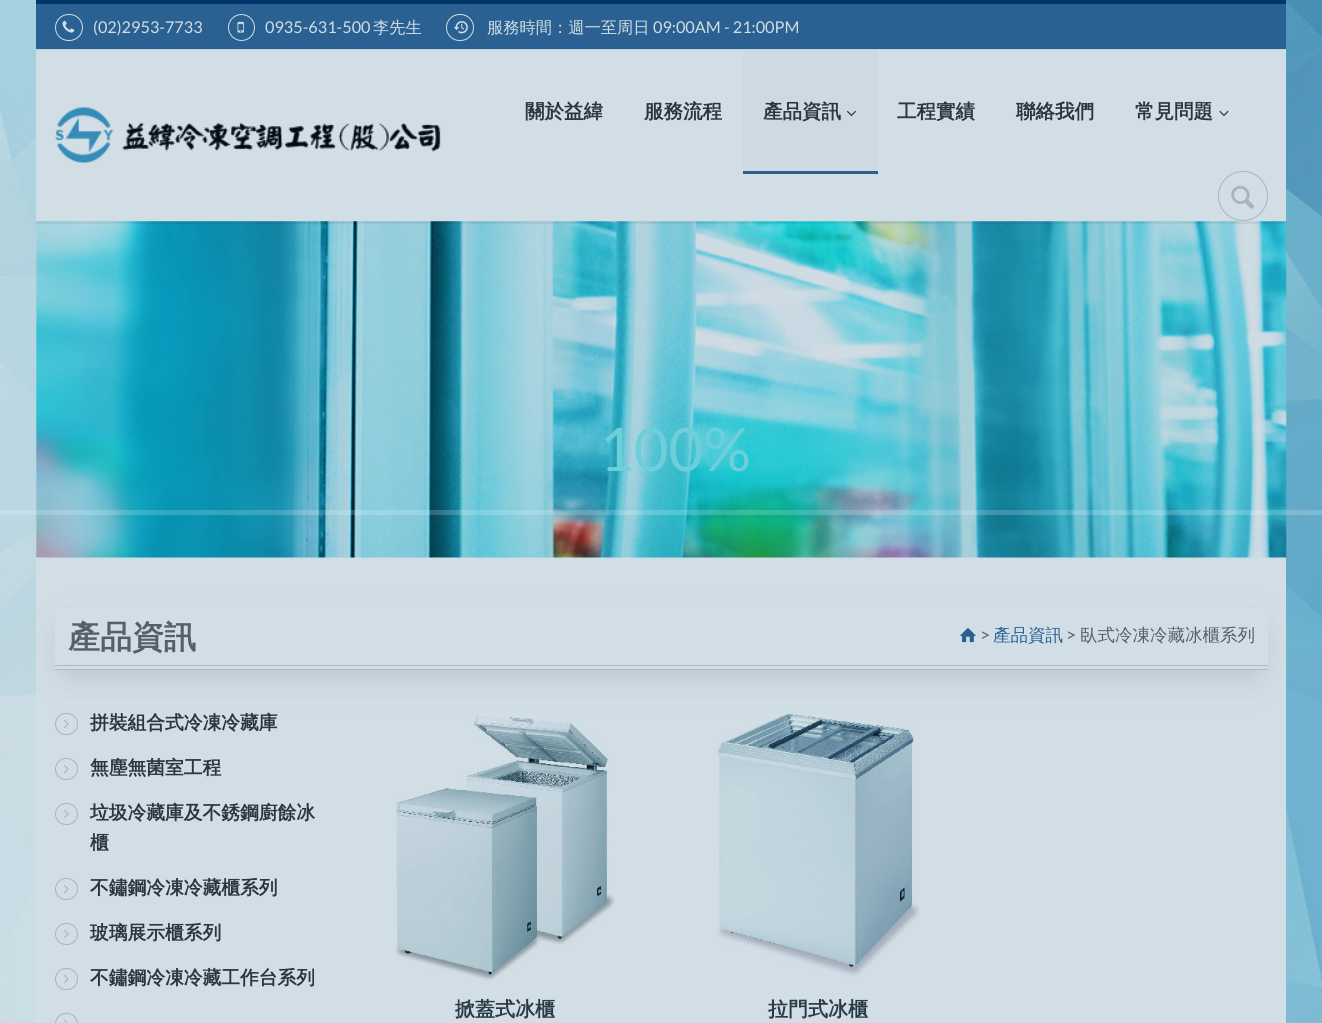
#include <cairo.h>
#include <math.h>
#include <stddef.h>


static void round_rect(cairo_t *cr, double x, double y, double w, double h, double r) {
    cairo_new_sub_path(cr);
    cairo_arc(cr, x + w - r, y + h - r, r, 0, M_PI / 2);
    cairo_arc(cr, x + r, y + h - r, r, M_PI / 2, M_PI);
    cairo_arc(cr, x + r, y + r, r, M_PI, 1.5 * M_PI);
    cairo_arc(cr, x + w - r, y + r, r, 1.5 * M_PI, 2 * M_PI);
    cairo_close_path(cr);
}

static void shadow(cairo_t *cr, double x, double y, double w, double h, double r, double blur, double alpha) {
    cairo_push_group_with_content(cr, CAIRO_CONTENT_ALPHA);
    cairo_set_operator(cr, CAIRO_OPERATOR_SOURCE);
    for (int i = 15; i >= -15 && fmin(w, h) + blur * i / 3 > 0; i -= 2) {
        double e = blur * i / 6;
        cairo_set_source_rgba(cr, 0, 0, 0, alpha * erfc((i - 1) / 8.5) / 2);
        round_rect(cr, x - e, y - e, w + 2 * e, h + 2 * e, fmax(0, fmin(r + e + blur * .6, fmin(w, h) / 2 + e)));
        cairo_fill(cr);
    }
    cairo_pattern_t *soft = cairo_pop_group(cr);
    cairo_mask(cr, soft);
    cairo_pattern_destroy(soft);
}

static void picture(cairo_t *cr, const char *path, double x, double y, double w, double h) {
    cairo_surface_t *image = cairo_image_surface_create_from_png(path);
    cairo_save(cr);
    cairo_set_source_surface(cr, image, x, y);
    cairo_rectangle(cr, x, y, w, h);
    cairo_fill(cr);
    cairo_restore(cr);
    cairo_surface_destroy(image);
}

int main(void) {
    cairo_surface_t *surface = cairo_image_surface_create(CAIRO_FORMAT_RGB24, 1322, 1023);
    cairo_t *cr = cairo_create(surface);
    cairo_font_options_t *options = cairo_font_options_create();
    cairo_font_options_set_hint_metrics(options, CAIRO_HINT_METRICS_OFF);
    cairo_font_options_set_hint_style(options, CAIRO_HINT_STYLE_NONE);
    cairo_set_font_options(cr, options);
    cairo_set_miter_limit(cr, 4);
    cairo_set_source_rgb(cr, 1, 1, 1);
    cairo_paint(cr);
    picture(cr, "img1.png", 0, 0, 1322, 1023);
    cairo_set_source_rgb(cr, 0.82, 0.871, 0.898);
    cairo_rectangle(cr, 36, 50, 1250, 973);
    cairo_fill(cr);
    cairo_set_source_rgb(cr, 0, 0.216, 0.408);
    cairo_rectangle(cr, 36, 0, 1250, 4);
    cairo_fill(cr);
    cairo_set_source_rgb(cr, 0.165, 0.38, 0.573);
    cairo_rectangle(cr, 36, 4, 1250, 45);
    cairo_fill(cr);
    round_rect(cr, 55.5, 14.5, 27, 26, 13);
    cairo_set_source_rgb(cr, 0.82, 0.871, 0.898);
    cairo_set_line_width(cr, 1);
    cairo_stroke(cr);
    picture(cr, "img2.png", 62, 20, 13, 13);
    cairo_select_font_face(cr, "Lato", CAIRO_FONT_SLANT_NORMAL, CAIRO_FONT_WEIGHT_NORMAL);
    cairo_set_font_size(cr, 16.25);
    cairo_move_to(cr, 93, 33);
    cairo_show_text(cr, "(02)2953-7733");
    cairo_new_path(cr);
    cairo_arc(cr, 241.5, 27.5, 13, 0, 2 * M_PI);
    cairo_stroke(cr);
    picture(cr, "img3.png", 237, 21, 7, 12);
    cairo_move_to(cr, 265, 33);
    cairo_show_text(cr, "0935-631-500");
    cairo_select_font_face(cr, "WenQuanYi Zen Hei Medium", CAIRO_FONT_SLANT_NORMAL, CAIRO_FONT_WEIGHT_NORMAL);
    cairo_move_to(cr, 373, 33);
    cairo_show_text(cr, "李先生");
    round_rect(cr, 446.5, 14.5, 27, 26, 13);
    cairo_stroke(cr);
    picture(cr, "img4.png", 453, 21, 15, 13);
    cairo_move_to(cr, 487, 33);
    cairo_show_text(cr, "服務時間：週一至周日");
    cairo_select_font_face(cr, "Lato", CAIRO_FONT_SLANT_NORMAL, CAIRO_FONT_WEIGHT_NORMAL);
    cairo_move_to(cr, 653, 33);
    cairo_show_text(cr, "09:00AM - 21:00PM");
    cairo_set_source_rgb(cr, 0.761, 0.824, 0.855);
    cairo_rectangle(cr, 36, 49, 1250, 1);
    cairo_fill(cr);
    picture(cr, "img5.png", 55, 107, 386, 56);
    cairo_select_font_face(cr, "WenQuanYi Zen Hei", CAIRO_FONT_SLANT_NORMAL, CAIRO_FONT_WEIGHT_BOLD);
    cairo_set_font_size(cr, 19.5);
    cairo_set_source_rgb(cr, 0.165, 0.216, 0.243);
    cairo_move_to(cr, 525, 118);
    cairo_show_text(cr, "關於益緯");
    cairo_move_to(cr, 644, 118);
    cairo_show_text(cr, "服務流程");
    cairo_set_source_rgb(cr, 0.804, 0.855, 0.882);
    cairo_rectangle(cr, 743, 50, 135, 121);
    cairo_fill(cr);
    cairo_set_source_rgb(cr, 0.165, 0.216, 0.243);
    cairo_move_to(cr, 763, 118);
    cairo_show_text(cr, "產品資訊");
    picture(cr, "img6.png", 847, 110, 9, 7);
    cairo_set_source_rgb(cr, 0.165, 0.38, 0.573);
    cairo_rectangle(cr, 743, 171, 135, 3);
    cairo_fill(cr);
    cairo_set_source_rgb(cr, 0.165, 0.216, 0.243);
    cairo_move_to(cr, 897, 118);
    cairo_show_text(cr, "工程實績");
    cairo_move_to(cr, 1016, 118);
    cairo_show_text(cr, "聯絡我們");
    cairo_move_to(cr, 1135, 118);
    cairo_show_text(cr, "常見問題");
    picture(cr, "img7.png", 1219, 110, 10, 7);
    cairo_arc(cr, 1243, 196, 24.5, 0, 2 * M_PI);
    cairo_set_source_rgb(cr, 0.655, 0.706, 0.733);
    cairo_stroke(cr);
    picture(cr, "img8.png", 1231, 185, 24, 24);
    picture(cr, "img9.png", 36, 221, 1251, 337);
    cairo_set_source_rgba(cr, 0, 0.051, 0.078, 0.06);
    cairo_rectangle(cr, 36, 221, 1250, 3);
    cairo_fill(cr);
    cairo_save(cr);
    cairo_set_fill_rule(cr, CAIRO_FILL_RULE_EVEN_ODD);
    cairo_new_path(cr);
    cairo_move_to(cr, 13, 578);
    cairo_line_to(cr, 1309, 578);
    cairo_line_to(cr, 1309, 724);
    cairo_line_to(cr, 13, 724);
    cairo_close_path(cr);
    cairo_move_to(cr, 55, 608);
    cairo_line_to(cr, 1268, 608);
    cairo_line_to(cr, 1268, 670);
    cairo_line_to(cr, 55, 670);
    cairo_close_path(cr);
    cairo_clip(cr);
    cairo_set_source_rgb(cr, 0.655, 0.706, 0.733);
    shadow(cr, 71, 636, 1180, 30, 0, 19, 1);
    cairo_restore(cr);
    cairo_set_source_rgb(cr, 0.678, 0.729, 0.757);
    cairo_rectangle(cr, 55, 665, 1213, 1);
    cairo_fill(cr);
    cairo_rectangle(cr, 55, 669, 1213, 1);
    cairo_fill(cr);
    cairo_set_font_size(cr, 32);
    cairo_set_source_rgb(cr, 0.329, 0.38, 0.408);
    cairo_move_to(cr, 68, 648);
    cairo_show_text(cr, "產品資訊");
    picture(cr, "img10.png", 960, 628, 16, 15);
    cairo_select_font_face(cr, "Lato", CAIRO_FONT_SLANT_NORMAL, CAIRO_FONT_WEIGHT_NORMAL);
    cairo_set_font_size(cr, 17.5);
    cairo_move_to(cr, 980, 641);
    cairo_show_text(cr, ">");
    cairo_select_font_face(cr, "WenQuanYi Zen Hei Medium", CAIRO_FONT_SLANT_NORMAL, CAIRO_FONT_WEIGHT_NORMAL);
    cairo_set_source_rgb(cr, 0.165, 0.38, 0.573);
    cairo_move_to(cr, 993, 641);
    cairo_show_text(cr, "產品資訊");
    cairo_select_font_face(cr, "Lato", CAIRO_FONT_SLANT_NORMAL, CAIRO_FONT_WEIGHT_NORMAL);
    cairo_set_source_rgb(cr, 0.329, 0.38, 0.408);
    cairo_move_to(cr, 1066, 641);
    cairo_show_text(cr, ">");
    cairo_select_font_face(cr, "WenQuanYi Zen Hei Medium", CAIRO_FONT_SLANT_NORMAL, CAIRO_FONT_WEIGHT_NORMAL);
    cairo_move_to(cr, 1080, 641);
    cairo_show_text(cr, "臥式冷凍冷藏冰櫃系列");
    round_rect(cr, 55.5, 713.5, 22, 21, 10.5);
    cairo_set_source_rgb(cr, 0.655, 0.706, 0.733);
    cairo_stroke(cr);
    picture(cr, "img11.png", 64, 720, 5, 9);
    cairo_select_font_face(cr, "WenQuanYi Zen Hei", CAIRO_FONT_SLANT_NORMAL, CAIRO_FONT_WEIGHT_BOLD);
    cairo_set_font_size(cr, 18.75);
    cairo_set_source_rgb(cr, 0.165, 0.216, 0.243);
    cairo_move_to(cr, 90, 729);
    cairo_show_text(cr, "拼裝組合式冷凍冷藏庫");
    round_rect(cr, 55.5, 758.5, 22, 21, 10.5);
    cairo_set_source_rgb(cr, 0.655, 0.706, 0.733);
    cairo_stroke(cr);
    picture(cr, "img11.png", 64, 765, 5, 9);
    cairo_set_source_rgb(cr, 0.165, 0.216, 0.243);
    cairo_move_to(cr, 90, 774);
    cairo_show_text(cr, "無塵無菌室工程");
    round_rect(cr, 55.5, 803.5, 22, 21, 10.5);
    cairo_set_source_rgb(cr, 0.655, 0.706, 0.733);
    cairo_stroke(cr);
    picture(cr, "img11.png", 64, 810, 5, 9);
    cairo_set_source_rgb(cr, 0.165, 0.216, 0.243);
    cairo_move_to(cr, 90, 819);
    cairo_show_text(cr, "垃圾冷藏庫及不銹鋼廚餘冰");
    cairo_move_to(cr, 90, 849);
    cairo_show_text(cr, "櫃");
    round_rect(cr, 55.5, 878.5, 22, 21, 10.5);
    cairo_set_source_rgb(cr, 0.655, 0.706, 0.733);
    cairo_stroke(cr);
    picture(cr, "img11.png", 64, 885, 5, 9);
    cairo_set_source_rgb(cr, 0.165, 0.216, 0.243);
    cairo_move_to(cr, 90, 894);
    cairo_show_text(cr, "不鏽鋼冷凍冷藏櫃系列");
    round_rect(cr, 55.5, 923.5, 22, 21, 10.5);
    cairo_set_source_rgb(cr, 0.655, 0.706, 0.733);
    cairo_stroke(cr);
    picture(cr, "img11.png", 64, 930, 5, 9);
    cairo_set_source_rgb(cr, 0.165, 0.216, 0.243);
    cairo_move_to(cr, 90, 939);
    cairo_show_text(cr, "玻璃展示櫃系列");
    round_rect(cr, 55.5, 968.5, 22, 21, 10.5);
    cairo_set_source_rgb(cr, 0.655, 0.706, 0.733);
    cairo_stroke(cr);
    picture(cr, "img11.png", 64, 975, 5, 9);
    cairo_set_source_rgb(cr, 0.165, 0.216, 0.243);
    cairo_move_to(cr, 90, 984);
    cairo_show_text(cr, "不鏽鋼冷凍冷藏工作台系列");
    round_rect(cr, 55.5, 1013.5, 22, 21, 10.5);
    cairo_set_source_rgb(cr, 0.655, 0.706, 0.733);
    cairo_stroke(cr);
    picture(cr, "img12.png", 64, 1020, 4, 3);
    picture(cr, "img13.png", 395, 715, 220, 266);
    cairo_set_font_size(cr, 20);
    cairo_set_source_rgb(cr, 0.169, 0.231, 0.275);
    cairo_move_to(cr, 455, 1016);
    cairo_show_text(cr, "掀蓋式冰櫃");
    picture(cr, "img14.png", 716, 713, 204, 264);
    cairo_move_to(cr, 768, 1016);
    cairo_show_text(cr, "拉門式冰櫃");
    cairo_select_font_face(cr, "Lato", CAIRO_FONT_SLANT_NORMAL, CAIRO_FONT_WEIGHT_NORMAL);
    cairo_set_font_size(cr, 60);
    cairo_set_source_rgb(cr, 0.431, 0.808, 0.855);
    cairo_move_to(cr, 599, 471);
    cairo_show_text(cr, "100%");
    cairo_set_source_rgba(cr, 1, 1, 1, 0.18);
    cairo_rectangle(cr, 0, 510, 1322, 5);
    cairo_fill(cr);
    cairo_surface_write_to_png(surface, "page.png");
    cairo_font_options_destroy(options);
    cairo_destroy(cr);
    cairo_surface_destroy(surface);
    return 0;
}
